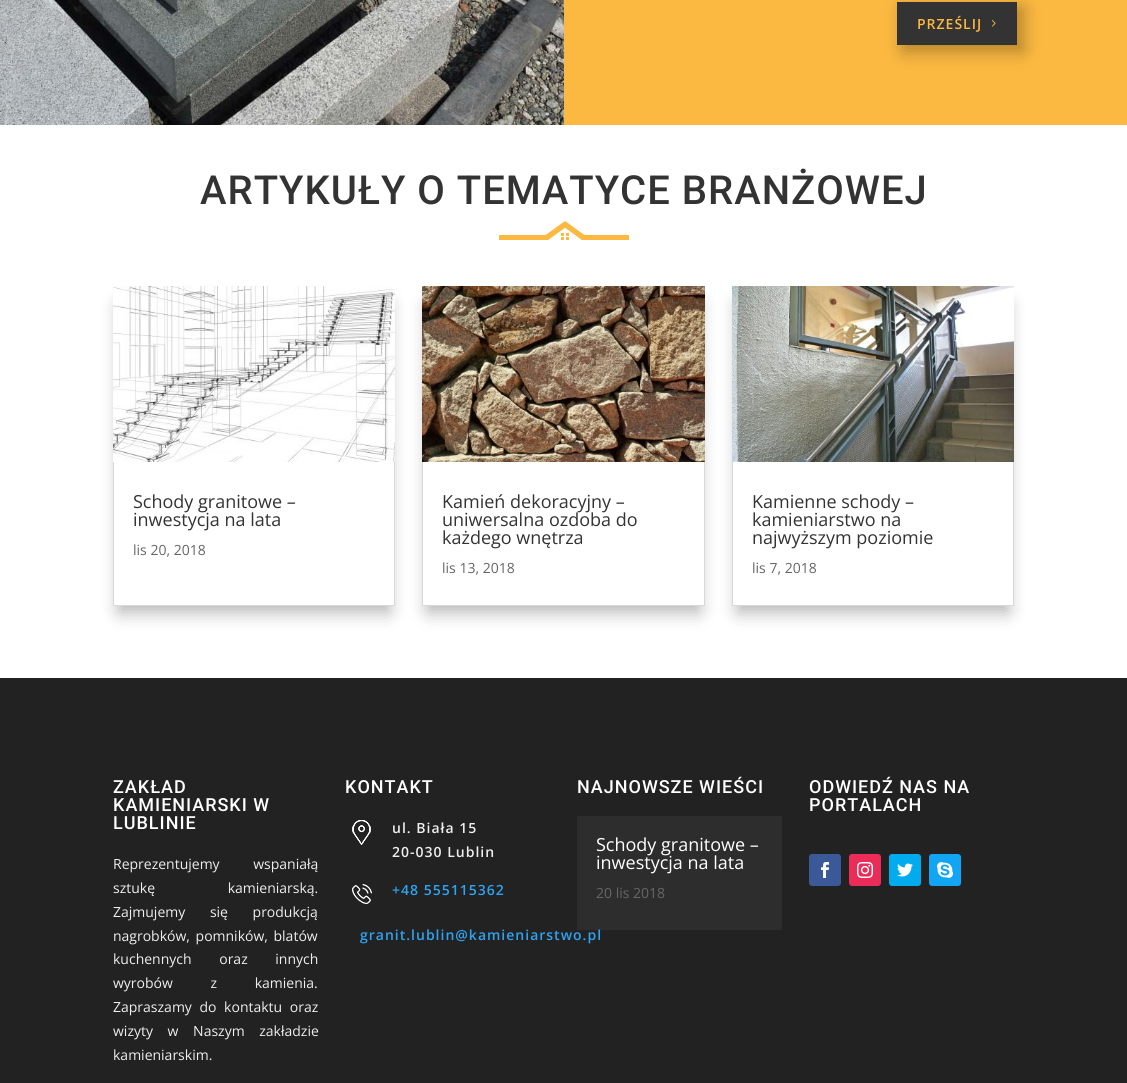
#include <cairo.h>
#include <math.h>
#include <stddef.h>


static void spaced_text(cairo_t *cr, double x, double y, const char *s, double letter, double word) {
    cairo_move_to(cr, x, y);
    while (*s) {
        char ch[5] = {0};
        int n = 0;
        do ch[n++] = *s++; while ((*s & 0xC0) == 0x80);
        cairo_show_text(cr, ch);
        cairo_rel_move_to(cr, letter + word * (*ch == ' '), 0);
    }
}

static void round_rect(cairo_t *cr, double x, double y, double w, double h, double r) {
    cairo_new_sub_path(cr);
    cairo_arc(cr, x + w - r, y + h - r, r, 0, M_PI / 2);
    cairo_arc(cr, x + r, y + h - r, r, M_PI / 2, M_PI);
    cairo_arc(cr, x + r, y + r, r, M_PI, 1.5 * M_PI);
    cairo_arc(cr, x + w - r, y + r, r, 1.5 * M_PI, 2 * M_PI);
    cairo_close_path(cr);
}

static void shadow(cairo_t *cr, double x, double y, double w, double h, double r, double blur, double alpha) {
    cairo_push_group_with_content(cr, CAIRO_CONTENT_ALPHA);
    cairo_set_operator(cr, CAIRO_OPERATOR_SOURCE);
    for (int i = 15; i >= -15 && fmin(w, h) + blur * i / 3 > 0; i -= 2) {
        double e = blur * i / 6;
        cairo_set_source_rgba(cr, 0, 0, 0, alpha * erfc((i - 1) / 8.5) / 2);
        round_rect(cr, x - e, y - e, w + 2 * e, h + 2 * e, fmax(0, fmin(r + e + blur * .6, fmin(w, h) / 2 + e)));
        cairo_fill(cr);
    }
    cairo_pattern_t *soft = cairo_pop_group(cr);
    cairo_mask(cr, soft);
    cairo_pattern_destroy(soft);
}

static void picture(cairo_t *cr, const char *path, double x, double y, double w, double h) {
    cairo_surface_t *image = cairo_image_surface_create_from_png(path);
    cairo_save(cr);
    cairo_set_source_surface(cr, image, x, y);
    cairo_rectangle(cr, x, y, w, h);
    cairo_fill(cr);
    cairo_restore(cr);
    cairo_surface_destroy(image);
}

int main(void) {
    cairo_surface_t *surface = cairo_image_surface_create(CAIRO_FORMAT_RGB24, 1127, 1083);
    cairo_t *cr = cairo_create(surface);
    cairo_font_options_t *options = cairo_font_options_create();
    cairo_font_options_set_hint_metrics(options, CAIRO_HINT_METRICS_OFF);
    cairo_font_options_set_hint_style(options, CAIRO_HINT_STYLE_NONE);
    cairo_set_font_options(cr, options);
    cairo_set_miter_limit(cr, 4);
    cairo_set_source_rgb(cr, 1, 1, 1);
    cairo_paint(cr);
    picture(cr, "img1.png", 0, 0, 564, 125);
    cairo_set_source_rgb(cr, 0.988, 0.725, 0.255);
    cairo_rectangle(cr, 564, 0, 563, 125);
    cairo_fill(cr);
    cairo_set_source_rgb(cr, 0, 0, 0);
    shadow(cr, 903, 8, 120, 43, 0, 9, 0.3);
    cairo_set_source_rgb(cr, 0.2, 0.2, 0.2);
    cairo_rectangle(cr, 897, 2, 120, 43);
    cairo_fill(cr);
    cairo_select_font_face(cr, "Open Sans SemiBold", CAIRO_FONT_SLANT_NORMAL, CAIRO_FONT_WEIGHT_NORMAL);
    cairo_set_font_size(cr, 14);
    cairo_set_source_rgb(cr, 0.988, 0.725, 0.255);
    spaced_text(cr, 917, 29, "PRZEŚLIJ", 1, 0);
    picture(cr, "img2.png", 992, 20, 4, 7);
    cairo_select_font_face(cr, "Roboto Medium", CAIRO_FONT_SLANT_NORMAL, CAIRO_FONT_WEIGHT_NORMAL);
    cairo_set_font_size(cr, 40);
    cairo_set_source_rgb(cr, 0.2, 0.2, 0.2);
    spaced_text(cr, 200, 204, "ARTYKUŁY O TEMATYCE BRANŻOWEJ", 1, 0);
    picture(cr, "img3.png", 499, 221, 130, 19);
    cairo_save(cr);
    cairo_set_fill_rule(cr, CAIRO_FILL_RULE_EVEN_ODD);
    cairo_new_path(cr);
    cairo_move_to(cr, 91, 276);
    cairo_line_to(cr, 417, 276);
    cairo_line_to(cr, 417, 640);
    cairo_line_to(cr, 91, 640);
    cairo_close_path(cr);
    cairo_move_to(cr, 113, 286);
    cairo_line_to(cr, 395, 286);
    cairo_line_to(cr, 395, 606);
    cairo_line_to(cr, 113, 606);
    cairo_close_path(cr);
    cairo_clip(cr);
    cairo_set_source_rgb(cr, 0, 0, 0);
    shadow(cr, 119, 304, 270, 308, 0, 9, 0.3);
    cairo_restore(cr);
    cairo_rectangle(cr, 113.5, 286.5, 281, 319);
    cairo_set_source_rgb(cr, 0.847, 0.847, 0.847);
    cairo_set_line_width(cr, 1);
    cairo_stroke(cr);
    picture(cr, "img4.png", 113, 286, 282, 176);
    cairo_select_font_face(cr, "Open Sans", CAIRO_FONT_SLANT_NORMAL, CAIRO_FONT_WEIGHT_NORMAL);
    cairo_set_font_size(cr, 18);
    cairo_set_source_rgb(cr, 0.2, 0.2, 0.2);
    cairo_move_to(cr, 133, 508);
    cairo_show_text(cr, "Schody granitowe –");
    cairo_move_to(cr, 133, 526);
    cairo_show_text(cr, "inwestycja na lata");
    cairo_set_font_size(cr, 14);
    cairo_set_source_rgb(cr, 0.4, 0.4, 0.4);
    cairo_move_to(cr, 133, 555);
    cairo_show_text(cr, "lis 20, 2018");
    cairo_save(cr);
    cairo_set_fill_rule(cr, CAIRO_FILL_RULE_EVEN_ODD);
    cairo_new_path(cr);
    cairo_move_to(cr, 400, 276);
    cairo_line_to(cr, 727, 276);
    cairo_line_to(cr, 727, 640);
    cairo_line_to(cr, 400, 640);
    cairo_close_path(cr);
    cairo_move_to(cr, 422, 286);
    cairo_line_to(cr, 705, 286);
    cairo_line_to(cr, 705, 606);
    cairo_line_to(cr, 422, 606);
    cairo_close_path(cr);
    cairo_clip(cr);
    cairo_set_source_rgb(cr, 0, 0, 0);
    shadow(cr, 428, 304, 271, 308, 0, 9, 0.3);
    cairo_restore(cr);
    cairo_rectangle(cr, 422.5, 286.5, 282, 319);
    cairo_set_source_rgb(cr, 0.847, 0.847, 0.847);
    cairo_stroke(cr);
    picture(cr, "img5.png", 422, 286, 283, 176);
    cairo_set_font_size(cr, 18);
    cairo_set_source_rgb(cr, 0.2, 0.2, 0.2);
    cairo_move_to(cr, 442, 508);
    cairo_show_text(cr, "Kamień dekoracyjny –");
    cairo_move_to(cr, 442, 526);
    cairo_show_text(cr, "uniwersalna ozdoba do");
    cairo_move_to(cr, 442, 544);
    cairo_show_text(cr, "każdego wnętrza");
    cairo_set_font_size(cr, 14);
    cairo_set_source_rgb(cr, 0.4, 0.4, 0.4);
    cairo_move_to(cr, 442, 573);
    cairo_show_text(cr, "lis 13, 2018");
    cairo_save(cr);
    cairo_set_fill_rule(cr, CAIRO_FILL_RULE_EVEN_ODD);
    cairo_new_path(cr);
    cairo_move_to(cr, 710, 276);
    cairo_line_to(cr, 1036, 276);
    cairo_line_to(cr, 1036, 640);
    cairo_line_to(cr, 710, 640);
    cairo_close_path(cr);
    cairo_move_to(cr, 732, 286);
    cairo_line_to(cr, 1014, 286);
    cairo_line_to(cr, 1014, 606);
    cairo_line_to(cr, 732, 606);
    cairo_close_path(cr);
    cairo_clip(cr);
    cairo_set_source_rgb(cr, 0, 0, 0);
    shadow(cr, 738, 304, 270, 308, 0, 9, 0.3);
    cairo_restore(cr);
    cairo_rectangle(cr, 732.5, 286.5, 281, 319);
    cairo_set_source_rgb(cr, 0.847, 0.847, 0.847);
    cairo_stroke(cr);
    picture(cr, "img6.png", 732, 286, 282, 176);
    cairo_set_font_size(cr, 18);
    cairo_set_source_rgb(cr, 0.2, 0.2, 0.2);
    cairo_move_to(cr, 752, 508);
    cairo_show_text(cr, "Kamienne schody –");
    cairo_move_to(cr, 752, 526);
    cairo_show_text(cr, "kamieniarstwo na");
    cairo_move_to(cr, 752, 544);
    cairo_show_text(cr, "najwyższym poziomie");
    cairo_set_font_size(cr, 14);
    cairo_set_source_rgb(cr, 0.4, 0.4, 0.4);
    cairo_move_to(cr, 752, 573);
    cairo_show_text(cr, "lis 7, 2018");
    cairo_set_source_rgb(cr, 0.133, 0.133, 0.133);
    cairo_rectangle(cr, 0, 678, 1127, 405);
    cairo_fill(cr);
    cairo_select_font_face(cr, "Roboto Medium", CAIRO_FONT_SLANT_NORMAL, CAIRO_FONT_WEIGHT_NORMAL);
    cairo_set_font_size(cr, 18);
    cairo_set_source_rgb(cr, 1, 1, 1);
    spaced_text(cr, 113, 793, "ZAKŁAD", 1, 0);
    spaced_text(cr, 113, 811, "KAMIENIARSKI W", 1, 0);
    spaced_text(cr, 113, 829, "LUBLINIE", 1, 0);
    cairo_select_font_face(cr, "Open Sans", CAIRO_FONT_SLANT_NORMAL, CAIRO_FONT_WEIGHT_NORMAL);
    cairo_set_font_size(cr, 14);
    cairo_set_source_rgb(cr, 0.933, 0.933, 0.933);
    spaced_text(cr, 113, 869, "Reprezentujemy wspaniałą", 0, 30);
    spaced_text(cr, 113, 893, "sztukę kamieniarską.", 0, 69);
    spaced_text(cr, 113, 917, "Zajmujemy się produkcją", 0, 21);
    spaced_text(cr, 113, 941, "nagrobków, pomników, blatów", 0, 2);
    spaced_text(cr, 113, 964, "kuchennych oraz innych", 0, 24);
    spaced_text(cr, 113, 988, "wyrobów z kamienia.", 0, 34);
    spaced_text(cr, 113, 1012, "Zapraszamy do kontaktu oraz", 0, 4);
    spaced_text(cr, 113, 1036, "wizyty w Naszym zakładzie", 0, 11);
    cairo_move_to(cr, 113, 1060);
    cairo_show_text(cr, "kamieniarskim.");
    cairo_select_font_face(cr, "Roboto Medium", CAIRO_FONT_SLANT_NORMAL, CAIRO_FONT_WEIGHT_NORMAL);
    cairo_set_font_size(cr, 18);
    cairo_set_source_rgb(cr, 1, 1, 1);
    spaced_text(cr, 345, 793, "KONTAKT", 1, 0);
    picture(cr, "img7.png", 352, 820, 19, 25);
    cairo_select_font_face(cr, "Open Sans SemiBold", CAIRO_FONT_SLANT_NORMAL, CAIRO_FONT_WEIGHT_NORMAL);
    cairo_set_font_size(cr, 14);
    cairo_set_source_rgb(cr, 0.933, 0.933, 0.933);
    spaced_text(cr, 392, 833, "ul. Biała 15", 1, 0);
    spaced_text(cr, 392, 857, "20-030 Lublin", 1, 0);
    picture(cr, "img8.png", 352, 884, 20, 20);
    cairo_set_source_rgb(cr, 0.18, 0.639, 0.949);
    spaced_text(cr, 392, 895, "+48 555115362", 1, 0);
    spaced_text(cr, 360, 940, "granit.lublin@kamieniarstwo.pl", 1, 0);
    cairo_select_font_face(cr, "Roboto Medium", CAIRO_FONT_SLANT_NORMAL, CAIRO_FONT_WEIGHT_NORMAL);
    cairo_set_font_size(cr, 18);
    cairo_set_source_rgb(cr, 1, 1, 1);
    spaced_text(cr, 577, 793, "NAJNOWSZE WIEŚCI", 1, 0);
    cairo_set_source_rgba(cr, 0.278, 0.278, 0.278, 0.3);
    cairo_rectangle(cr, 577, 816, 205, 114);
    cairo_fill(cr);
    cairo_select_font_face(cr, "Open Sans", CAIRO_FONT_SLANT_NORMAL, CAIRO_FONT_WEIGHT_NORMAL);
    cairo_set_source_rgb(cr, 1, 1, 1);
    cairo_move_to(cr, 596, 851);
    cairo_show_text(cr, "Schody granitowe –");
    cairo_move_to(cr, 596, 869);
    cairo_show_text(cr, "inwestycja na lata");
    cairo_set_font_size(cr, 14);
    cairo_set_source_rgb(cr, 0.4, 0.4, 0.4);
    cairo_move_to(cr, 596, 898);
    cairo_show_text(cr, "20 lis 2018");
    cairo_select_font_face(cr, "Roboto Medium", CAIRO_FONT_SLANT_NORMAL, CAIRO_FONT_WEIGHT_NORMAL);
    cairo_set_font_size(cr, 18);
    cairo_set_source_rgb(cr, 1, 1, 1);
    spaced_text(cr, 809, 793, "ODWIEDŹ NAS NA", 1, 0);
    spaced_text(cr, 809, 811, "PORTALACH", 1, 0);
    cairo_set_source_rgb(cr, 0.231, 0.349, 0.596);
    round_rect(cr, 809, 854, 32, 32, 3);
    cairo_fill(cr);
    picture(cr, "img9.png", 821, 862, 8, 16);
    cairo_set_source_rgb(cr, 0.918, 0.173, 0.349);
    round_rect(cr, 849, 854, 32, 32, 3);
    cairo_fill(cr);
    picture(cr, "img10.png", 857, 862, 16, 16);
    cairo_set_source_rgb(cr, 0, 0.675, 0.929);
    round_rect(cr, 889, 854, 32, 32, 3);
    cairo_fill(cr);
    picture(cr, "img11.png", 897, 863, 16, 14);
    cairo_set_source_rgb(cr, 0.071, 0.647, 0.957);
    round_rect(cr, 929, 854, 32, 32, 3);
    cairo_fill(cr);
    picture(cr, "img12.png", 937, 862, 16, 16);
    cairo_surface_write_to_png(surface, "page.png");
    cairo_font_options_destroy(options);
    cairo_destroy(cr);
    cairo_surface_destroy(surface);
    return 0;
}
